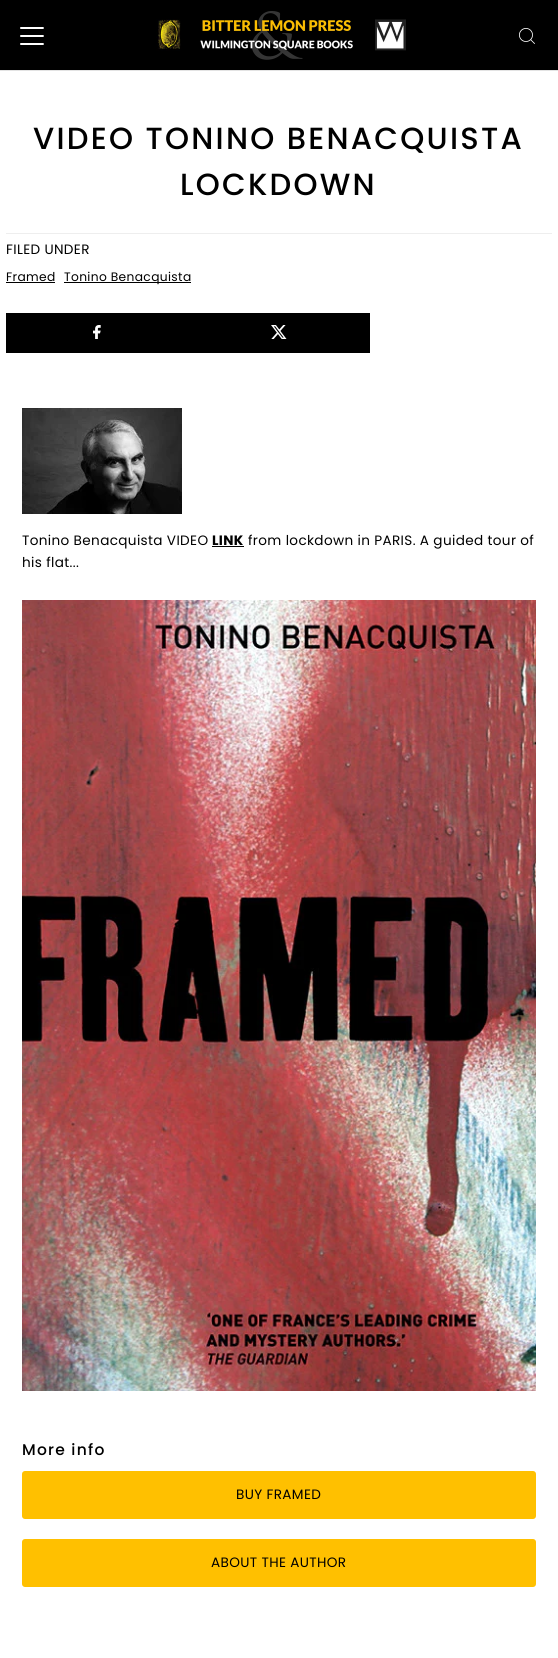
#include <cairo.h>
#include <math.h>
#include <stddef.h>


static void spaced_text(cairo_t *cr, double x, double y, const char *s, double letter, double word) {
    cairo_move_to(cr, x, y);
    while (*s) {
        char ch[5] = {0};
        int n = 0;
        do ch[n++] = *s++; while ((*s & 0xC0) == 0x80);
        cairo_show_text(cr, ch);
        cairo_rel_move_to(cr, letter + word * (*ch == ' '), 0);
    }
}

static void round_rect(cairo_t *cr, double x, double y, double w, double h, double r) {
    cairo_new_sub_path(cr);
    cairo_arc(cr, x + w - r, y + h - r, r, 0, M_PI / 2);
    cairo_arc(cr, x + r, y + h - r, r, M_PI / 2, M_PI);
    cairo_arc(cr, x + r, y + r, r, M_PI, 1.5 * M_PI);
    cairo_arc(cr, x + w - r, y + r, r, 1.5 * M_PI, 2 * M_PI);
    cairo_close_path(cr);
}

static void picture(cairo_t *cr, const char *path, double x, double y, double w, double h) {
    cairo_surface_t *image = cairo_image_surface_create_from_png(path);
    cairo_save(cr);
    cairo_set_source_surface(cr, image, x, y);
    cairo_rectangle(cr, x, y, w, h);
    cairo_fill(cr);
    cairo_restore(cr);
    cairo_surface_destroy(image);
}

int main(void) {
    cairo_surface_t *surface = cairo_image_surface_create(CAIRO_FORMAT_RGB24, 558, 1658);
    cairo_t *cr = cairo_create(surface);
    cairo_font_options_t *options = cairo_font_options_create();
    cairo_font_options_set_hint_metrics(options, CAIRO_HINT_METRICS_OFF);
    cairo_font_options_set_hint_style(options, CAIRO_HINT_STYLE_NONE);
    cairo_set_font_options(cr, options);
    cairo_set_miter_limit(cr, 4);
    cairo_set_source_rgb(cr, 1, 1, 1);
    cairo_paint(cr);
    cairo_set_source_rgb(cr, 0, 0, 0);
    cairo_rectangle(cr, 0, 0, 558, 70);
    cairo_fill(cr);
    cairo_set_source_rgb(cr, 0.89, 0.89, 0.89);
    cairo_rectangle(cr, 0, 70, 558, 1);
    cairo_fill(cr);
    picture(cr, "img1.png", 20, 27, 24, 18);
    picture(cr, "img2.png", 156, 11, 250, 49);
    picture(cr, "img3.png", 519, 28, 16, 16);
    cairo_select_font_face(cr, "Poppins Medium", CAIRO_FONT_SLANT_NORMAL, CAIRO_FONT_WEIGHT_NORMAL);
    cairo_set_font_size(cr, 30.6);
    cairo_set_source_rgb(cr, 0, 0, 0);
    spaced_text(cr, 33, 149, "VIDEO TONINO BENACQUISTA", 2.25, 0);
    spaced_text(cr, 180, 195, "LOCKDOWN", 2.25, 0);
    cairo_set_source_rgb(cr, 0.933, 0.933, 0.933);
    cairo_rectangle(cr, 6, 233, 546, 1);
    cairo_fill(cr);
    cairo_select_font_face(cr, "Poppins", CAIRO_FONT_SLANT_NORMAL, CAIRO_FONT_WEIGHT_NORMAL);
    cairo_set_font_size(cr, 13.6);
    cairo_set_source_rgb(cr, 0, 0, 0);
    spaced_text(cr, 6, 254, "FILED UNDER", 0.35, 0);
    cairo_set_font_size(cr, 12.25);
    spaced_text(cr, 6, 281, "Framed", 0.35, 0);
    cairo_rectangle(cr, 6, 282, 49, 1);
    cairo_fill(cr);
    cairo_rectangle(cr, 64, 282, 127, 1);
    cairo_fill(cr);
    spaced_text(cr, 64, 281, "Tonino Benacquista", 0.35, 0);
    cairo_rectangle(cr, 6, 313, 364, 40);
    cairo_fill(cr);
    picture(cr, "img4.png", 93, 325, 8, 14);
    picture(cr, "img5.png", 271, 325, 16, 14);
    picture(cr, "img6.png", 22, 408, 160, 106);
    cairo_set_font_size(cr, 13.6);
    spaced_text(cr, 22, 545, "Tonino Benacquista VIDEO", 0.35, 0);
    cairo_select_font_face(cr, "Poppins", CAIRO_FONT_SLANT_NORMAL, CAIRO_FONT_WEIGHT_BOLD);
    spaced_text(cr, 212, 545, "LINK", 0.35, 0);
    cairo_rectangle(cr, 212, 546, 32, 1);
    cairo_fill(cr);
    cairo_select_font_face(cr, "Poppins", CAIRO_FONT_SLANT_NORMAL, CAIRO_FONT_WEIGHT_NORMAL);
    spaced_text(cr, 248, 545, "from lockdown in PARIS. A guided tour of", 0.35, 0);
    spaced_text(cr, 22, 567, "his flat...", 0.35, 0);
    picture(cr, "img7.png", 22, 600, 514, 791);
    cairo_select_font_face(cr, "Poppins Medium", CAIRO_FONT_SLANT_NORMAL, CAIRO_FONT_WEIGHT_NORMAL);
    cairo_set_font_size(cr, 15.5);
    spaced_text(cr, 22, 1455, "More info", 1.25, 0);
    cairo_set_source_rgb(cr, 1, 0.753, 0);
    round_rect(cr, 22, 1471, 514, 48, 3);
    cairo_fill(cr);
    cairo_select_font_face(cr, "Poppins", CAIRO_FONT_SLANT_NORMAL, CAIRO_FONT_WEIGHT_NORMAL);
    cairo_set_font_size(cr, 13.6);
    cairo_set_source_rgb(cr, 0, 0, 0);
    spaced_text(cr, 236, 1499, "BUY FRAMED", 0.35, 0);
    cairo_set_source_rgb(cr, 1, 0.753, 0);
    round_rect(cr, 22, 1539, 514, 48, 3);
    cairo_fill(cr);
    cairo_set_source_rgb(cr, 0, 0, 0);
    spaced_text(cr, 211, 1567, "ABOUT THE AUTHOR", 0.35, 0);
    cairo_surface_write_to_png(surface, "page.png");
    cairo_font_options_destroy(options);
    cairo_destroy(cr);
    cairo_surface_destroy(surface);
    return 0;
}
